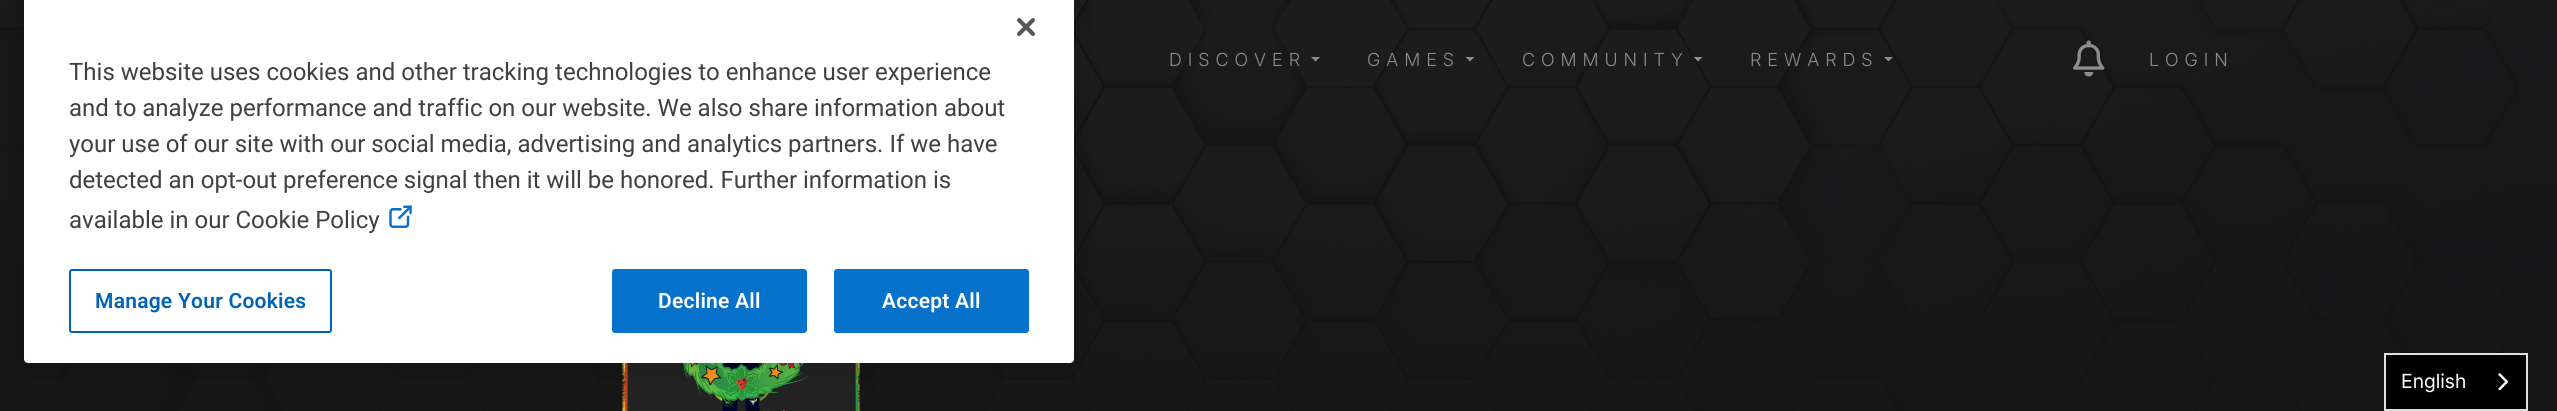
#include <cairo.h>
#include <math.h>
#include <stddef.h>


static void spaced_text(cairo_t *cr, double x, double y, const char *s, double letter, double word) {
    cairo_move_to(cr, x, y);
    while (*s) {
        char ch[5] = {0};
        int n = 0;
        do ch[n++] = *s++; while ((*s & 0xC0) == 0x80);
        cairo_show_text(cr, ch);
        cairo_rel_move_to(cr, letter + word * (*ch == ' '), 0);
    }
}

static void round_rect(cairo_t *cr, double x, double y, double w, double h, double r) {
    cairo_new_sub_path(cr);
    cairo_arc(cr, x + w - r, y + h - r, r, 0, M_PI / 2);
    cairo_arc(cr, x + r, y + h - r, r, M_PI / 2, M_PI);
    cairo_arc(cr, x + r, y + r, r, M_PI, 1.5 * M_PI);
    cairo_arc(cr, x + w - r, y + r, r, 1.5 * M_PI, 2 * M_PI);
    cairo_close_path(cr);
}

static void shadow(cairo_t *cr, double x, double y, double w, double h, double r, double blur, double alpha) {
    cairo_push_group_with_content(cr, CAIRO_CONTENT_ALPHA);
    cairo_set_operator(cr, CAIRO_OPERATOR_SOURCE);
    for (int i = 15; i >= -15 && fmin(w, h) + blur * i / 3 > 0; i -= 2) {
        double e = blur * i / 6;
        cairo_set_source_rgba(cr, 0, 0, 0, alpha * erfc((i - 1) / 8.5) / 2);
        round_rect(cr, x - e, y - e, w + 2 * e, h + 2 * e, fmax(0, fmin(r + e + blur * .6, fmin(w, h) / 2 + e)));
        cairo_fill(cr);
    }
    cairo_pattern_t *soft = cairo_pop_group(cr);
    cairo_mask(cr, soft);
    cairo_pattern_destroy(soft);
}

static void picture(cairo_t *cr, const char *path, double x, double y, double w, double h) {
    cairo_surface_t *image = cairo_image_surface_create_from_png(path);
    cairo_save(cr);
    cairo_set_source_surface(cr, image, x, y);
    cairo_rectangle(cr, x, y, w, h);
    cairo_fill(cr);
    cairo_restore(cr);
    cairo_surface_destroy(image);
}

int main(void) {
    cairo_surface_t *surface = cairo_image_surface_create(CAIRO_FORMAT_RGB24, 2557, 411);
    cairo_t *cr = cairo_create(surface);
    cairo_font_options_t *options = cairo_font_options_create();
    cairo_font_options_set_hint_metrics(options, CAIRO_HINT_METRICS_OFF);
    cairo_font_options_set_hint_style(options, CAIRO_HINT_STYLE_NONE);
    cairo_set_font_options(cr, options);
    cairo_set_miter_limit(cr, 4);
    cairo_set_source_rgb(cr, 1, 1, 1);
    cairo_paint(cr);
    picture(cr, "img1.png", 0, 0, 2557, 411);
    cairo_select_font_face(cr, "Inter Light", CAIRO_FONT_SLANT_NORMAL, CAIRO_FONT_WEIGHT_NORMAL);
    cairo_set_font_size(cr, 18);
    cairo_set_source_rgb(cr, 0.549, 0.549, 0.553);
    spaced_text(cr, 1169, 66, "DISCOVER", 6, 0);
    cairo_set_source_rgb(cr, 0.553, 0.553, 0.557);
    cairo_new_path(cr);
    cairo_move_to(cr, 1311, 57);
    cairo_line_to(cr, 1320, 57);
    cairo_line_to(cr, 1315.5, 61.5);
    cairo_close_path(cr);
    cairo_fill(cr);
    cairo_set_source_rgb(cr, 0.549, 0.549, 0.553);
    spaced_text(cr, 1367, 66, "GAMES", 6, 0);
    cairo_set_source_rgb(cr, 0.553, 0.553, 0.553);
    cairo_new_path(cr);
    cairo_move_to(cr, 1465.5, 57);
    cairo_line_to(cr, 1474.5, 57);
    cairo_line_to(cr, 1470, 61.5);
    cairo_close_path(cr);
    cairo_fill(cr);
    cairo_set_source_rgb(cr, 0.549, 0.549, 0.553);
    spaced_text(cr, 1522, 66, "COMMUNITY", 6, 0);
    cairo_set_source_rgba(cr, 1, 1, 1, 0.5);
    cairo_new_path(cr);
    cairo_move_to(cr, 1693.5, 57);
    cairo_line_to(cr, 1702.5, 57);
    cairo_line_to(cr, 1698, 61.5);
    cairo_close_path(cr);
    cairo_fill(cr);
    cairo_set_source_rgb(cr, 0.549, 0.549, 0.553);
    spaced_text(cr, 1750, 66, "REWARDS", 6, 0);
    cairo_set_source_rgb(cr, 0.553, 0.553, 0.553);
    cairo_new_path(cr);
    cairo_move_to(cr, 1884, 57);
    cairo_line_to(cr, 1893, 57);
    cairo_line_to(cr, 1888.5, 61.5);
    cairo_close_path(cr);
    cairo_fill(cr);
    picture(cr, "img2.png", 2073, 40, 32, 37);
    cairo_set_source_rgb(cr, 0.549, 0.549, 0.553);
    spaced_text(cr, 2149, 66, "LOGIN", 6, 0);
    cairo_set_source_rgb(cr, 0.133, 0.133, 0.133);
    cairo_rectangle(cr, 627, 363, 233, 48);
    cairo_fill(cr);
    picture(cr, "img4.png", 683, 363, 125, 48);
    picture(cr, "img3.png", 622, 363, 238, 48);
    cairo_set_source_rgb(cr, 0, 0, 0);
    shadow(cr, 24, -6, 1050, 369, 4, 13.5, 0.2);
    cairo_set_source_rgb(cr, 1, 1, 1);
    round_rect(cr, 24, -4, 1050, 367, 4);
    cairo_fill(cr);
    picture(cr, "img5.png", 1017, 18, 18, 18);
    cairo_select_font_face(cr, "Roboto", CAIRO_FONT_SLANT_NORMAL, CAIRO_FONT_WEIGHT_NORMAL);
    cairo_set_font_size(cr, 24);
    cairo_set_source_rgb(cr, 0.251, 0.251, 0.251);
    cairo_move_to(cr, 69, 80);
    cairo_show_text(cr, "This website uses cookies and other tracking technologies to enhance user experience");
    cairo_move_to(cr, 69, 116);
    cairo_show_text(cr, "and to analyze performance and traffic on our website. We also share information about");
    cairo_move_to(cr, 69, 152);
    cairo_show_text(cr, "your use of our site with our social media, advertising and analytics partners. If we have");
    cairo_move_to(cr, 69, 188);
    cairo_show_text(cr, "detected an opt-out preference signal then it will be honored. Further information is");
    cairo_move_to(cr, 69, 228);
    cairo_show_text(cr, "available in our Cookie Policy");
    picture(cr, "img6.png", 389, 205, 23, 23);
    round_rect(cr, 70, 270, 261, 62, 2);
    cairo_set_source_rgb(cr, 0, 0.388, 0.722);
    cairo_stroke(cr);
    cairo_select_font_face(cr, "Roboto SemiBold", CAIRO_FONT_SLANT_NORMAL, CAIRO_FONT_WEIGHT_NORMAL);
    cairo_set_font_size(cr, 21);
    spaced_text(cr, 95, 308, "Manage Your Cookies", 0.25, 0);
    cairo_set_source_rgb(cr, 0.024, 0.447, 0.796);
    round_rect(cr, 613, 270, 193, 62, 2);
    cairo_fill_preserve(cr);
    cairo_stroke(cr);
    cairo_set_source_rgb(cr, 1, 1, 1);
    spaced_text(cr, 658, 308, "Decline All", 0.25, 0);
    cairo_set_source_rgb(cr, 0.024, 0.447, 0.796);
    round_rect(cr, 835, 270, 193, 62, 2);
    cairo_fill_preserve(cr);
    cairo_stroke(cr);
    cairo_set_source_rgb(cr, 1, 1, 1);
    spaced_text(cr, 882, 308, "Accept All", 0.25, 0);
    cairo_set_source_rgb(cr, 0, 0, 0);
    cairo_rectangle(cr, 2385, 354, 142, 56);
    cairo_fill_preserve(cr);
    cairo_set_source_rgb(cr, 0.878, 0.878, 0.878);
    cairo_stroke(cr);
    cairo_select_font_face(cr, "Inter", CAIRO_FONT_SLANT_NORMAL, CAIRO_FONT_WEIGHT_NORMAL);
    cairo_set_font_size(cr, 19.5);
    cairo_set_source_rgb(cr, 1, 1, 1);
    cairo_move_to(cr, 2401, 388);
    cairo_show_text(cr, "English");
    picture(cr, "img7.png", 2498, 373, 10, 18);
    cairo_surface_write_to_png(surface, "page.png");
    cairo_font_options_destroy(options);
    cairo_destroy(cr);
    cairo_surface_destroy(surface);
    return 0;
}
